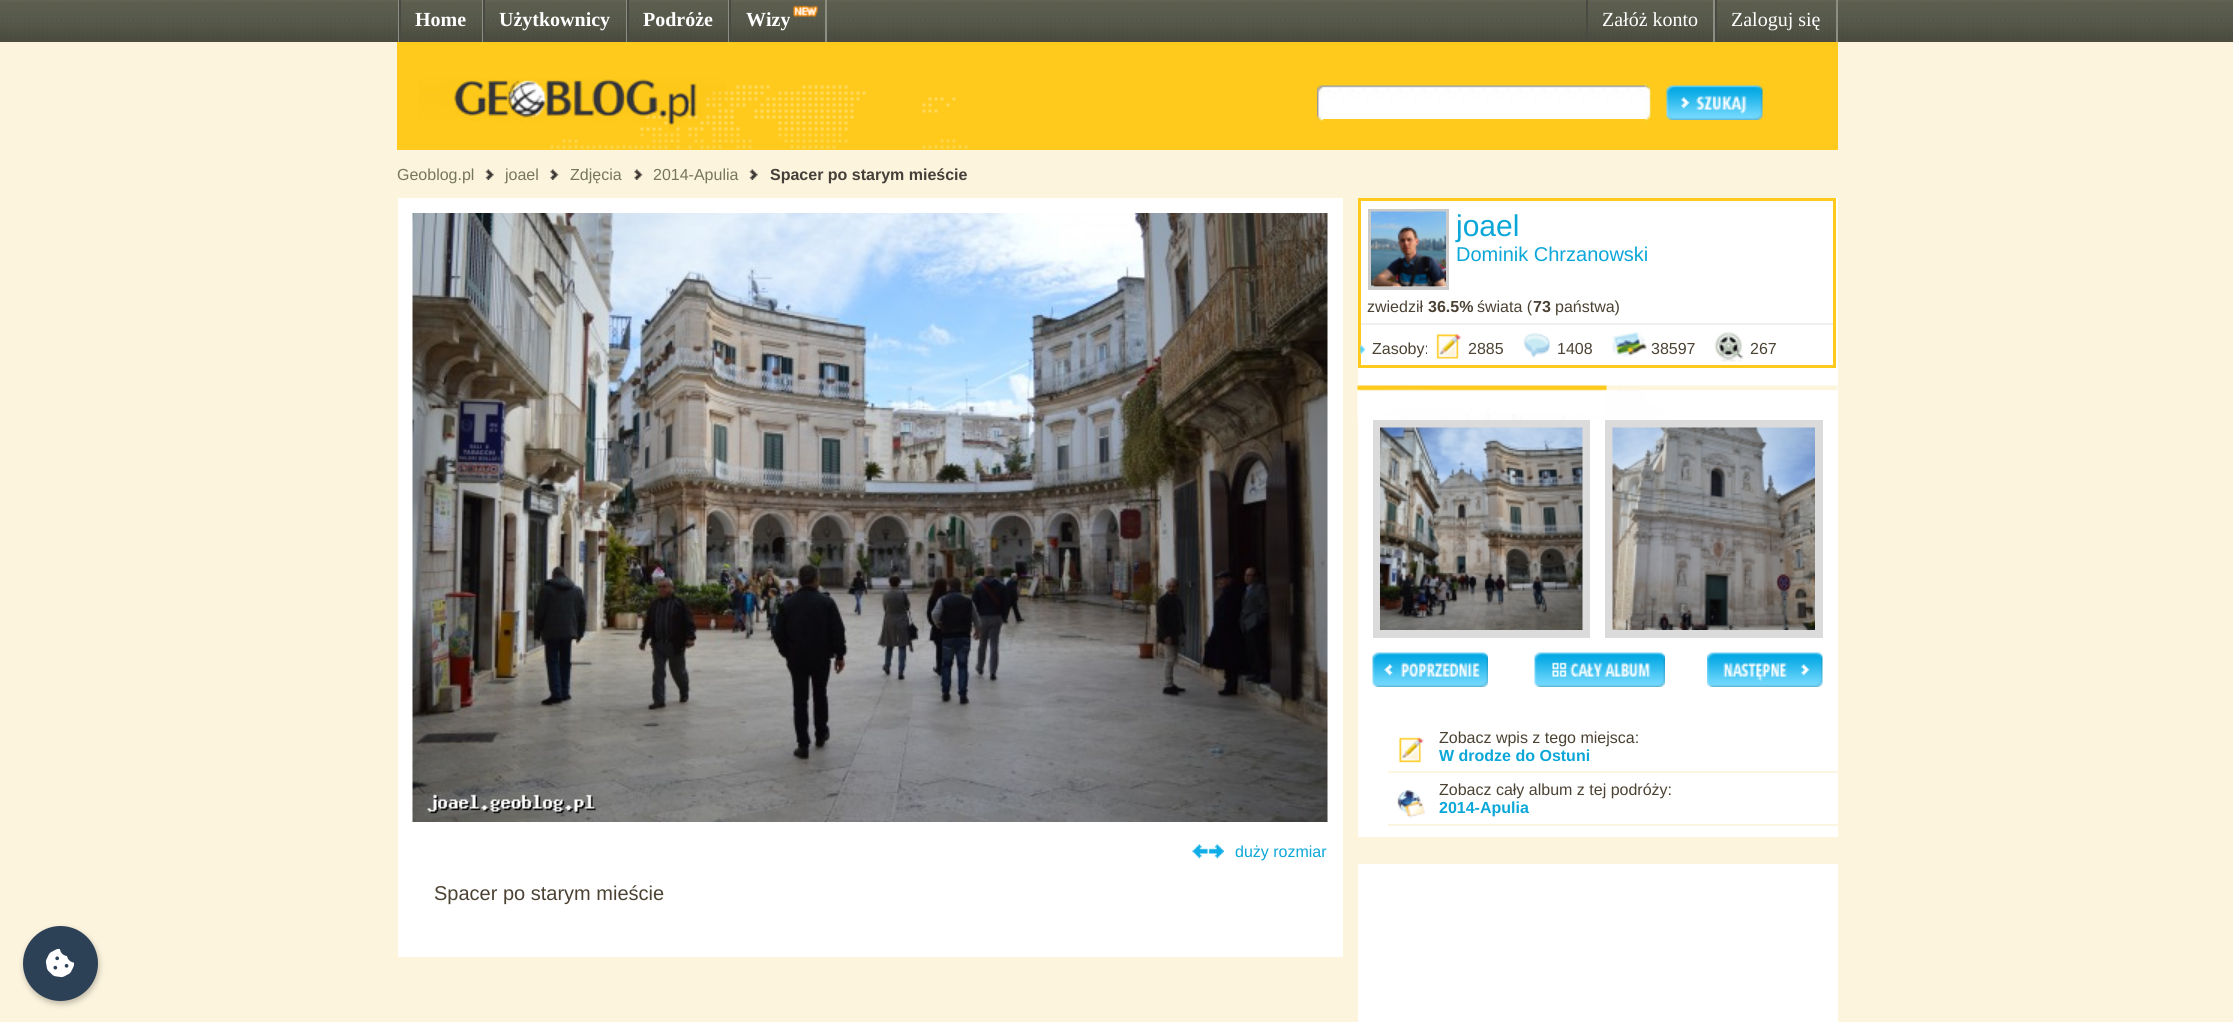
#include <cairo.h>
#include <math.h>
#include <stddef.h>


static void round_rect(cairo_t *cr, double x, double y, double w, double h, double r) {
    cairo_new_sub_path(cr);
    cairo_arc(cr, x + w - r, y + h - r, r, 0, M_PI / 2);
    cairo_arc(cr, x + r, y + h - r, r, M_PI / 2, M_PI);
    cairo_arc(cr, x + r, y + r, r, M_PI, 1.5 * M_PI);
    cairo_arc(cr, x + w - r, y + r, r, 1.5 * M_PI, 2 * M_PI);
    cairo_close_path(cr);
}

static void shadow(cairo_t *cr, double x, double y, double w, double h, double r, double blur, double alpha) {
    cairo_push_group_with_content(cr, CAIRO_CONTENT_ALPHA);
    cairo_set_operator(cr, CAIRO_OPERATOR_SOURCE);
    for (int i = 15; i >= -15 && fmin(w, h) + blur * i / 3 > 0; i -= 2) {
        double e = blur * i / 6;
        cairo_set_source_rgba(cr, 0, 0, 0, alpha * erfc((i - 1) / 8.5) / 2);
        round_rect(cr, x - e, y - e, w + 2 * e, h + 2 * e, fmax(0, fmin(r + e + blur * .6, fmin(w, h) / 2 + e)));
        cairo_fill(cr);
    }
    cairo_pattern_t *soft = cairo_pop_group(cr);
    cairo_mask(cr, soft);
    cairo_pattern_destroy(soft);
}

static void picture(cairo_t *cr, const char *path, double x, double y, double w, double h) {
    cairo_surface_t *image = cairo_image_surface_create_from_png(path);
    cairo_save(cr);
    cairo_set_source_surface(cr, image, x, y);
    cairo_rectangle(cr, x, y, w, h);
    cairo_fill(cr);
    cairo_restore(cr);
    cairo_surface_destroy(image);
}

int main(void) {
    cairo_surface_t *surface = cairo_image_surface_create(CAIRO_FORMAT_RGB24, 2233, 1022);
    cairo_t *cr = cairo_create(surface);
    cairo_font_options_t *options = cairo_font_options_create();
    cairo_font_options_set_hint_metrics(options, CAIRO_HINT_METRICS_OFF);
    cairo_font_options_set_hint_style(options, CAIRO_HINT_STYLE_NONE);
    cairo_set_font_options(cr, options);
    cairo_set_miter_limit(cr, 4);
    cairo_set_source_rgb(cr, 0.988, 0.957, 0.867);
    cairo_paint(cr);
    picture(cr, "img1.png", 0, 0, 2233, 42);
    cairo_set_source_rgb(cr, 0.549, 0.553, 0.514);
    cairo_rectangle(cr, 398, 0, 1, 42);
    cairo_fill(cr);
    cairo_rectangle(cr, 482, 0, 1, 42);
    cairo_fill(cr);
    cairo_set_source_rgb(cr, 0.286, 0.29, 0.255);
    cairo_rectangle(cr, 399, 0, 2, 42);
    cairo_fill(cr);
    cairo_select_font_face(cr, "Liberation Serif", CAIRO_FONT_SLANT_NORMAL, CAIRO_FONT_WEIGHT_BOLD);
    cairo_set_font_size(cr, 20);
    cairo_set_source_rgb(cr, 1, 1, 1);
    cairo_move_to(cr, 415, 26);
    cairo_show_text(cr, "Home");
    cairo_set_source_rgb(cr, 0.549, 0.553, 0.514);
    cairo_rectangle(cr, 626, 0, 1, 42);
    cairo_fill(cr);
    cairo_set_source_rgb(cr, 0.286, 0.29, 0.255);
    cairo_rectangle(cr, 483, 0, 2, 42);
    cairo_fill(cr);
    cairo_set_source_rgb(cr, 1, 1, 1);
    cairo_move_to(cr, 499, 26);
    cairo_show_text(cr, "Użytkownicy");
    cairo_set_source_rgb(cr, 0.549, 0.553, 0.514);
    cairo_rectangle(cr, 728, 0, 1, 42);
    cairo_fill(cr);
    cairo_set_source_rgb(cr, 0.286, 0.29, 0.255);
    cairo_rectangle(cr, 627, 0, 2, 42);
    cairo_fill(cr);
    cairo_set_source_rgb(cr, 1, 1, 1);
    cairo_move_to(cr, 643, 26);
    cairo_show_text(cr, "Podróże");
    cairo_set_source_rgb(cr, 0.549, 0.553, 0.514);
    cairo_rectangle(cr, 825, 0, 2, 42);
    cairo_fill(cr);
    cairo_set_source_rgb(cr, 0.286, 0.29, 0.255);
    cairo_rectangle(cr, 729, 0, 2, 42);
    cairo_fill(cr);
    cairo_set_source_rgb(cr, 1, 1, 1);
    cairo_move_to(cr, 746, 26);
    cairo_show_text(cr, "Wizy");
    picture(cr, "img2.png", 793, 5, 25, 12);
    cairo_set_source_rgb(cr, 0.549, 0.553, 0.514);
    cairo_rectangle(cr, 1713, 0, 2, 42);
    cairo_fill(cr);
    cairo_set_source_rgb(cr, 0.286, 0.29, 0.255);
    cairo_rectangle(cr, 1586, 0, 2, 42);
    cairo_fill(cr);
    cairo_select_font_face(cr, "Liberation Serif", CAIRO_FONT_SLANT_NORMAL, CAIRO_FONT_WEIGHT_NORMAL);
    cairo_set_source_rgb(cr, 1, 1, 1);
    cairo_move_to(cr, 1602, 26);
    cairo_show_text(cr, "Załóż konto");
    cairo_set_source_rgb(cr, 0.549, 0.553, 0.514);
    cairo_rectangle(cr, 1836, 0, 2, 42);
    cairo_fill(cr);
    cairo_set_source_rgb(cr, 0.286, 0.29, 0.255);
    cairo_rectangle(cr, 1715, 0, 2, 42);
    cairo_fill(cr);
    cairo_set_source_rgb(cr, 1, 1, 1);
    cairo_move_to(cr, 1731, 26);
    cairo_show_text(cr, "Zaloguj się");
    cairo_set_source_rgb(cr, 1, 0.792, 0.11);
    cairo_rectangle(cr, 397, 42, 1441, 108);
    cairo_fill(cr);
    picture(cr, "img3.png", 398, 78, 570, 72);
    picture(cr, "img4.png", 1317, 84, 6, 38);
    cairo_set_source_rgb(cr, 1, 1, 1);
    cairo_rectangle(cr, 1323, 84, 323, 35);
    cairo_fill(cr);
    picture(cr, "img5.png", 1323, 84, 323, 16);
    picture(cr, "img6.png", 1645, 84, 7, 38);
    picture(cr, "img7.png", 1666, 85, 97, 35);
    cairo_select_font_face(cr, "Liberation Sans", CAIRO_FONT_SLANT_NORMAL, CAIRO_FONT_WEIGHT_NORMAL);
    cairo_set_font_size(cr, 16);
    cairo_set_source_rgb(cr, 0.463, 0.463, 0.361);
    cairo_move_to(cr, 397, 180);
    cairo_show_text(cr, "Geoblog.pl");
    picture(cr, "img8.png", 485, 169, 9, 11);
    cairo_move_to(cr, 505, 180);
    cairo_show_text(cr, "joael");
    picture(cr, "img9.png", 550, 169, 9, 11);
    cairo_move_to(cr, 570, 180);
    cairo_show_text(cr, "Zdjęcia");
    picture(cr, "img9.png", 634, 169, 9, 11);
    cairo_move_to(cr, 653, 180);
    cairo_show_text(cr, "2014-Apulia");
    picture(cr, "img8.png", 749, 169, 9, 11);
    cairo_select_font_face(cr, "Liberation Sans", CAIRO_FONT_SLANT_NORMAL, CAIRO_FONT_WEIGHT_BOLD);
    cairo_set_source_rgb(cr, 0.267, 0.247, 0.224);
    cairo_move_to(cr, 770, 180);
    cairo_show_text(cr, "Spacer po starym mieście");
    cairo_set_source_rgb(cr, 1, 1, 1);
    cairo_rectangle(cr, 1358, 198, 480, 639);
    cairo_fill(cr);
    cairo_rectangle(cr, 1359.5, 199.5, 475, 167);
    cairo_set_source_rgb(cr, 1, 0.792, 0.11);
    cairo_set_line_width(cr, 3);
    cairo_stroke(cr);
    cairo_set_source_rgb(cr, 0.941, 0.941, 0.941);
    cairo_rectangle(cr, 1361, 323, 472, 2);
    cairo_fill(cr);
    cairo_rectangle(cr, 1369.5, 210.5, 78, 78);
    cairo_set_source_rgb(cr, 0.792, 0.792, 0.792);
    cairo_stroke(cr);
    picture(cr, "img10.png", 1371, 211, 75, 76);
    cairo_select_font_face(cr, "Liberation Sans", CAIRO_FONT_SLANT_NORMAL, CAIRO_FONT_WEIGHT_NORMAL);
    cairo_set_font_size(cr, 30);
    cairo_set_source_rgb(cr, 0.043, 0.655, 0.847);
    cairo_move_to(cr, 1456, 236);
    cairo_show_text(cr, "joael");
    cairo_set_font_size(cr, 20);
    cairo_move_to(cr, 1456, 261);
    cairo_show_text(cr, "Dominik Chrzanowski");
    cairo_set_font_size(cr, 16);
    cairo_set_source_rgb(cr, 0.294, 0.259, 0.2);
    cairo_move_to(cr, 1367, 312);
    cairo_show_text(cr, "zwiedził");
    cairo_select_font_face(cr, "Liberation Sans", CAIRO_FONT_SLANT_NORMAL, CAIRO_FONT_WEIGHT_BOLD);
    cairo_move_to(cr, 1428, 312);
    cairo_show_text(cr, "36.5%");
    cairo_select_font_face(cr, "Liberation Sans", CAIRO_FONT_SLANT_NORMAL, CAIRO_FONT_WEIGHT_NORMAL);
    cairo_move_to(cr, 1477, 312);
    cairo_show_text(cr, "świata (");
    cairo_select_font_face(cr, "Liberation Sans", CAIRO_FONT_SLANT_NORMAL, CAIRO_FONT_WEIGHT_BOLD);
    cairo_move_to(cr, 1533, 312);
    cairo_show_text(cr, "73");
    cairo_select_font_face(cr, "Liberation Sans", CAIRO_FONT_SLANT_NORMAL, CAIRO_FONT_WEIGHT_NORMAL);
    cairo_move_to(cr, 1555, 312);
    cairo_show_text(cr, "państwa)");
    picture(cr, "img11.png", 1360, 345, 5, 9);
    cairo_move_to(cr, 1372, 354);
    cairo_show_text(cr, "Zasoby:");
    picture(cr, "img12.png", 1436, 334, 26, 25);
    cairo_move_to(cr, 1468, 354);
    cairo_show_text(cr, "2885");
    picture(cr, "img13.png", 1523, 333, 27, 25);
    cairo_move_to(cr, 1557, 354);
    cairo_show_text(cr, "1408");
    picture(cr, "img14.png", 1612, 331, 35, 26);
    cairo_move_to(cr, 1651, 354);
    cairo_show_text(cr, "38597");
    picture(cr, "img15.png", 1714, 331, 30, 31);
    cairo_move_to(cr, 1750, 354);
    cairo_show_text(cr, "267");
    picture(cr, "img16.png", 1357, 385, 481, 35);
    cairo_rectangle(cr, 1377, 424, 209, 210);
    cairo_set_source_rgb(cr, 0.859, 0.859, 0.859);
    cairo_set_line_width(cr, 8);
    cairo_stroke(cr);
    picture(cr, "img17.png", 1380, 427, 203, 203);
    cairo_rectangle(cr, 1609, 424, 210, 210);
    cairo_stroke(cr);
    picture(cr, "img18.png", 1612, 427, 203, 203);
    picture(cr, "img19.png", 1372, 652, 116, 35);
    picture(cr, "img20.png", 1534, 652, 131, 35);
    picture(cr, "img21.png", 1707, 652, 116, 35);
    cairo_set_source_rgb(cr, 0.98, 0.961, 0.875);
    cairo_rectangle(cr, 1388, 771, 450, 2);
    cairo_fill(cr);
    picture(cr, "img22.png", 1399, 737, 25, 26);
    cairo_set_source_rgb(cr, 0.294, 0.259, 0.2);
    cairo_move_to(cr, 1439, 743);
    cairo_show_text(cr, "Zobacz wpis z tego miejsca:");
    cairo_select_font_face(cr, "Liberation Sans", CAIRO_FONT_SLANT_NORMAL, CAIRO_FONT_WEIGHT_BOLD);
    cairo_set_source_rgb(cr, 0.043, 0.655, 0.847);
    cairo_move_to(cr, 1439, 761);
    cairo_show_text(cr, "W drodze do Ostuni");
    cairo_set_source_rgb(cr, 0.98, 0.961, 0.875);
    cairo_rectangle(cr, 1388, 824, 450, 2);
    cairo_fill(cr);
    picture(cr, "img23.png", 1397, 790, 28, 28);
    cairo_select_font_face(cr, "Liberation Sans", CAIRO_FONT_SLANT_NORMAL, CAIRO_FONT_WEIGHT_NORMAL);
    cairo_set_source_rgb(cr, 0.294, 0.259, 0.2);
    cairo_move_to(cr, 1439, 795);
    cairo_show_text(cr, "Zobacz cały album z tej podróży:");
    cairo_select_font_face(cr, "Liberation Sans", CAIRO_FONT_SLANT_NORMAL, CAIRO_FONT_WEIGHT_BOLD);
    cairo_set_source_rgb(cr, 0.043, 0.655, 0.847);
    cairo_move_to(cr, 1439, 813);
    cairo_show_text(cr, "2014-Apulia");
    cairo_set_source_rgb(cr, 1, 1, 1);
    cairo_rectangle(cr, 1358, 864, 480, 158);
    cairo_fill(cr);
    cairo_rectangle(cr, 398, 198, 945, 759);
    cairo_fill(cr);
    picture(cr, "img24.png", 412, 213, 916, 609);
    picture(cr, "img25.png", 1192, 844, 32, 15);
    cairo_select_font_face(cr, "Liberation Sans", CAIRO_FONT_SLANT_NORMAL, CAIRO_FONT_WEIGHT_NORMAL);
    cairo_set_source_rgb(cr, 0.043, 0.655, 0.847);
    cairo_move_to(cr, 1235, 857);
    cairo_show_text(cr, "duży rozmiar");
    cairo_set_font_size(cr, 20);
    cairo_set_source_rgb(cr, 0.294, 0.259, 0.2);
    cairo_move_to(cr, 434, 900);
    cairo_show_text(cr, "Spacer po starym mieście");
    cairo_set_source_rgb(cr, 0, 0, 0);
    shadow(cr, 24, 929, 75, 75, 37.5, 3, 0.25);
    cairo_set_source_rgb(cr, 0.176, 0.255, 0.337);
    cairo_arc(cr, 60.5, 963.5, 37.5, 0, 2 * M_PI);
    cairo_fill(cr);
    picture(cr, "img26.png", 45, 948, 30, 30);
    cairo_surface_write_to_png(surface, "page.png");
    cairo_font_options_destroy(options);
    cairo_destroy(cr);
    cairo_surface_destroy(surface);
    return 0;
}
